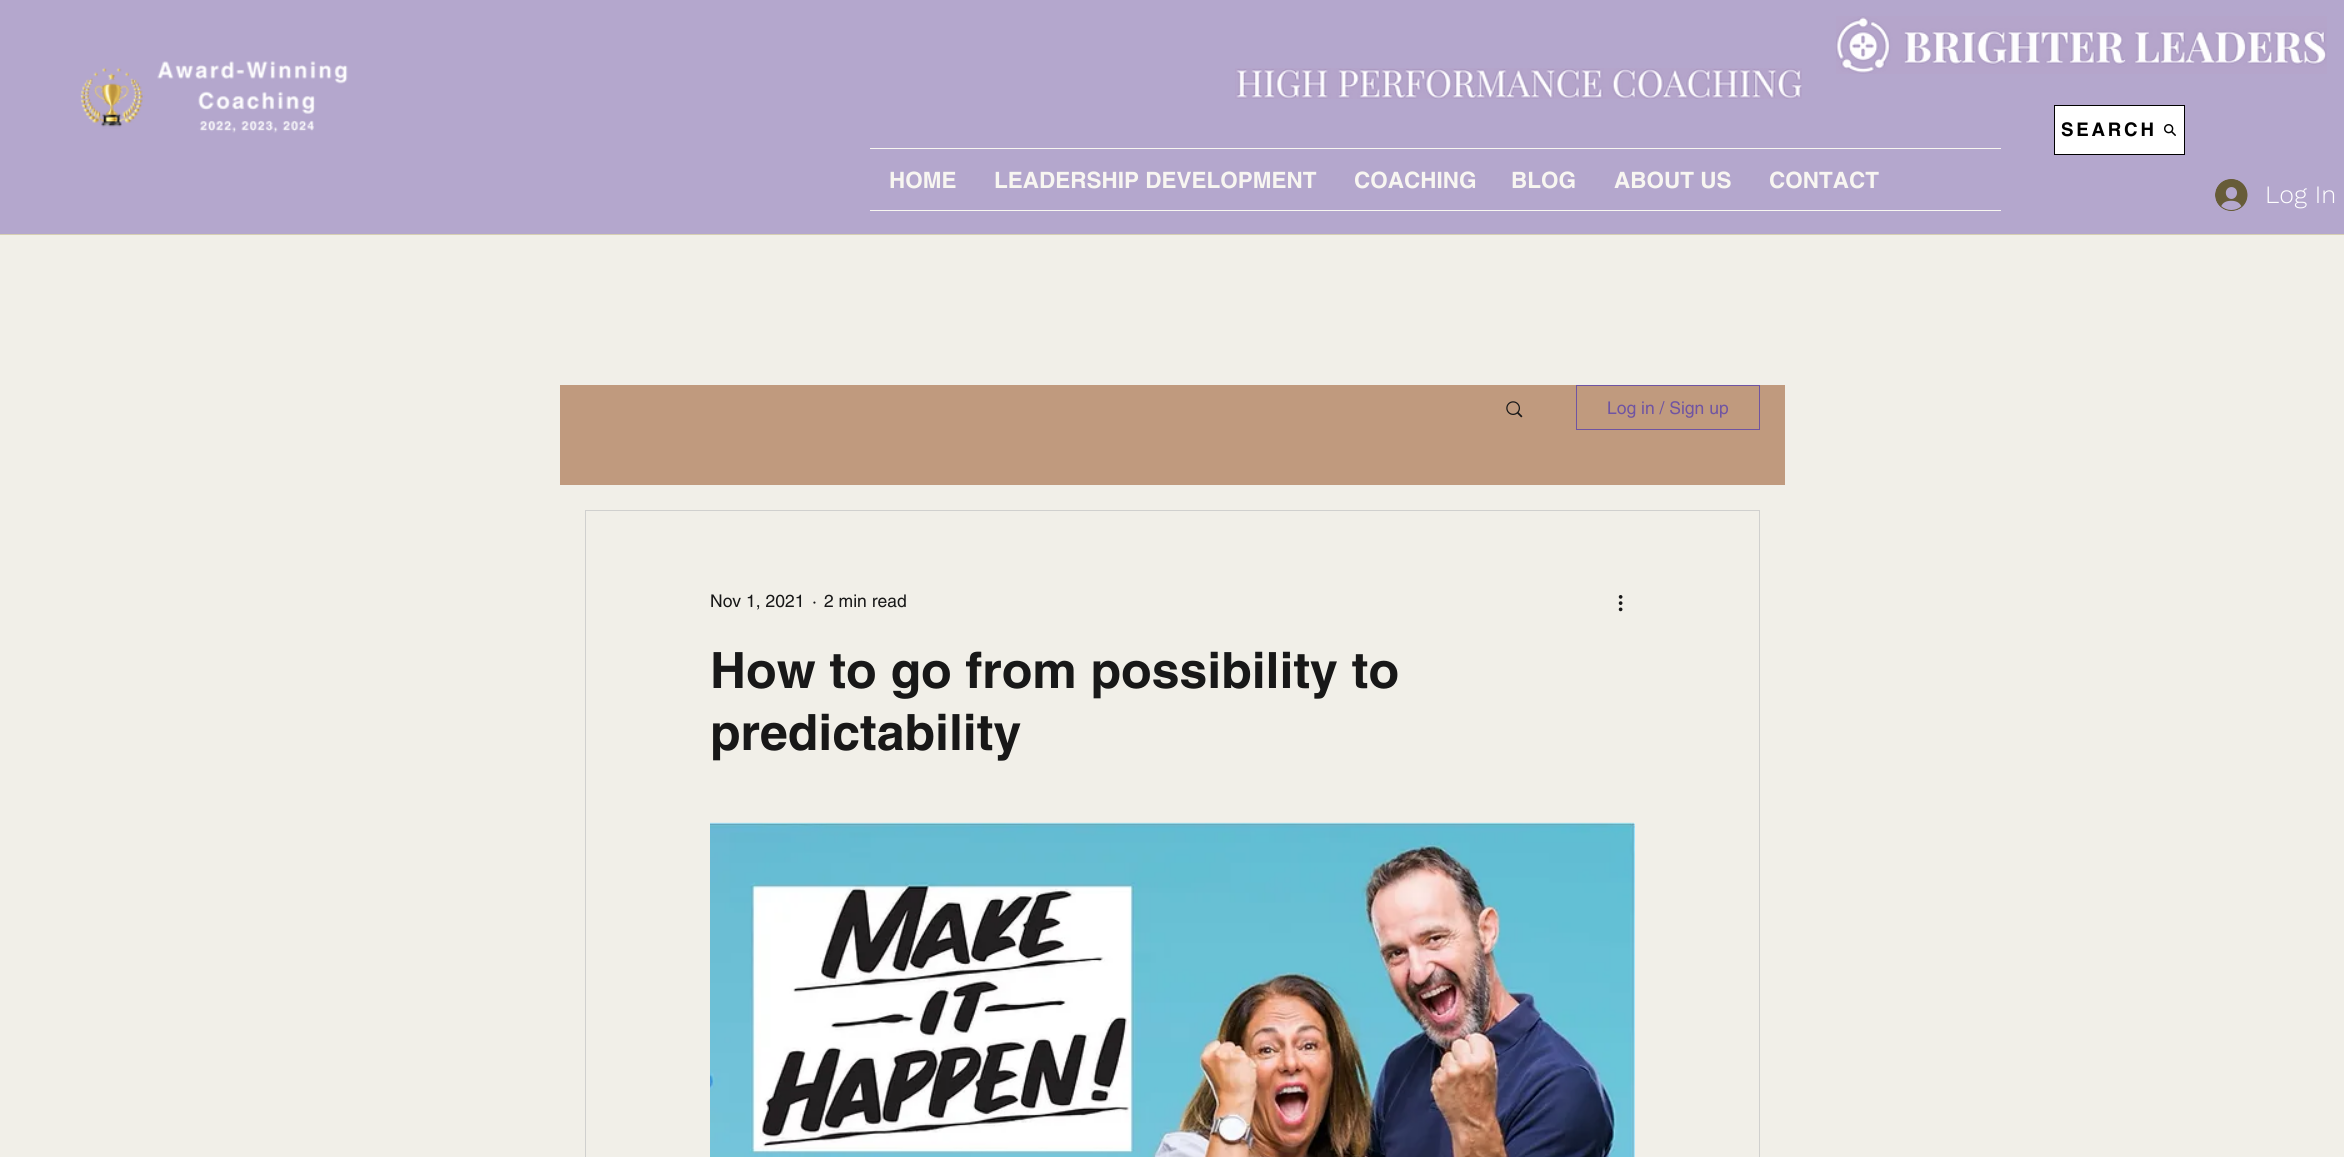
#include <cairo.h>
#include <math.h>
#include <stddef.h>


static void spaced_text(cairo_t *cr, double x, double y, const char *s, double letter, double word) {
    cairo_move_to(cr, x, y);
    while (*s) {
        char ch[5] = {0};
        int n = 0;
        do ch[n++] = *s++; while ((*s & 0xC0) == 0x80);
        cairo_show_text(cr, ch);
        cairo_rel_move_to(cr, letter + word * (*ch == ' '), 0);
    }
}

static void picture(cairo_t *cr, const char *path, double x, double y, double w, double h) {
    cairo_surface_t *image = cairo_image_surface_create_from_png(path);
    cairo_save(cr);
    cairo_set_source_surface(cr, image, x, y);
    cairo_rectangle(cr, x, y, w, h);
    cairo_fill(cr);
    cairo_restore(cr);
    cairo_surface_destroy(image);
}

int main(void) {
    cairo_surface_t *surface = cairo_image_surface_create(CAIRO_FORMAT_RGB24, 2344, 1157);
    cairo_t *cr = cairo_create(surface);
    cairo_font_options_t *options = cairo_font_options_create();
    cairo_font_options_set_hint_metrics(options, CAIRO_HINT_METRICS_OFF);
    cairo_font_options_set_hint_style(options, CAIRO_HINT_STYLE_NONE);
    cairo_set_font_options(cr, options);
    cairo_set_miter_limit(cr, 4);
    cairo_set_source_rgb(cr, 0.945, 0.937, 0.91);
    cairo_paint(cr);
    cairo_set_source_rgb(cr, 0.706, 0.655, 0.804);
    cairo_rectangle(cr, 0, 0, 2344, 234);
    cairo_fill(cr);
    picture(cr, "img1.png", 80, 61, 268, 72);
    picture(cr, "img2.png", 1836, 16, 491, 58);
    picture(cr, "img3.png", 1235, 68, 567, 31);
    cairo_set_source_rgb(cr, 1, 1, 1);
    cairo_rectangle(cr, 2054.5, 105.5, 130, 49);
    cairo_fill_preserve(cr);
    cairo_set_source_rgb(cr, 0, 0, 0);
    cairo_set_line_width(cr, 1);
    cairo_stroke(cr);
    cairo_select_font_face(cr, "helvetica", CAIRO_FONT_SLANT_NORMAL, CAIRO_FONT_WEIGHT_BOLD);
    cairo_set_font_size(cr, 18.75);
    spaced_text(cr, 2061, 136, "SEARCH", 2.75, 0);
    picture(cr, "img4.png", 2164, 124, 12, 12);
    cairo_set_source_rgb(cr, 0.969, 0.961, 0.945);
    cairo_rectangle(cr, 870, 148, 1131, 1);
    cairo_fill(cr);
    cairo_rectangle(cr, 870, 210, 1131, 1);
    cairo_fill(cr);
    cairo_set_font_size(cr, 22.5);
    cairo_move_to(cr, 889, 188);
    cairo_show_text(cr, "HOME");
    cairo_move_to(cr, 994, 188);
    cairo_show_text(cr, "LEADERSHIP DEVELOPMENT");
    cairo_move_to(cr, 1354, 188);
    cairo_show_text(cr, "COACHING");
    cairo_move_to(cr, 1511, 188);
    cairo_show_text(cr, "BLOG");
    cairo_move_to(cr, 1614, 188);
    cairo_show_text(cr, "ABOUT US");
    cairo_move_to(cr, 1769, 188);
    cairo_show_text(cr, "CONTACT");
    picture(cr, "img5.png", 2215, 179, 33, 32);
    cairo_select_font_face(cr, "Work Sans Light", CAIRO_FONT_SLANT_NORMAL, CAIRO_FONT_WEIGHT_NORMAL);
    cairo_set_font_size(cr, 25);
    cairo_set_source_rgb(cr, 1, 1, 1);
    cairo_move_to(cr, 2265, 203);
    cairo_show_text(cr, "Log In");
    cairo_set_source_rgb(cr, 0.839, 0.808, 0.702);
    cairo_rectangle(cr, 0, 234, 2344, 1);
    cairo_fill(cr);
    cairo_set_source_rgb(cr, 0.753, 0.604, 0.494);
    cairo_rectangle(cr, 560, 385, 1225, 100);
    cairo_fill(cr);
    picture(cr, "img6.png", 1506, 401, 17, 17);
    cairo_rectangle(cr, 1576.5, 385.5, 183, 44);
    cairo_set_source_rgb(cr, 0.435, 0.329, 0.635);
    cairo_stroke(cr);
    cairo_select_font_face(cr, "helvetica", CAIRO_FONT_SLANT_NORMAL, CAIRO_FONT_WEIGHT_NORMAL);
    cairo_set_font_size(cr, 17.5);
    cairo_move_to(cr, 1607, 414);
    cairo_show_text(cr, "Log in / Sign up");
    cairo_rectangle(cr, 585.5, 510.5, 1174, 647);
    cairo_set_source_rgb(cr, 0.816, 0.816, 0.808);
    cairo_stroke(cr);
    cairo_set_source_rgb(cr, 0.094, 0.094, 0.094);
    cairo_move_to(cr, 710, 607);
    cairo_show_text(cr, "Nov 1, 2021");
    cairo_move_to(cr, 812, 607);
    cairo_show_text(cr, "·");
    cairo_move_to(cr, 824, 607);
    cairo_show_text(cr, "2 min read");
    picture(cr, "img7.png", 1618, 595, 5, 17);
    cairo_select_font_face(cr, "helvetica", CAIRO_FONT_SLANT_NORMAL, CAIRO_FONT_WEIGHT_BOLD);
    cairo_set_font_size(cr, 50);
    cairo_move_to(cr, 710, 688);
    cairo_show_text(cr, "How to go from possibility to");
    cairo_move_to(cr, 710, 750);
    cairo_show_text(cr, "predictability");
    picture(cr, "img8.png", 710, 822, 925, 335);
    cairo_surface_write_to_png(surface, "page.png");
    cairo_font_options_destroy(options);
    cairo_destroy(cr);
    cairo_surface_destroy(surface);
    return 0;
}
